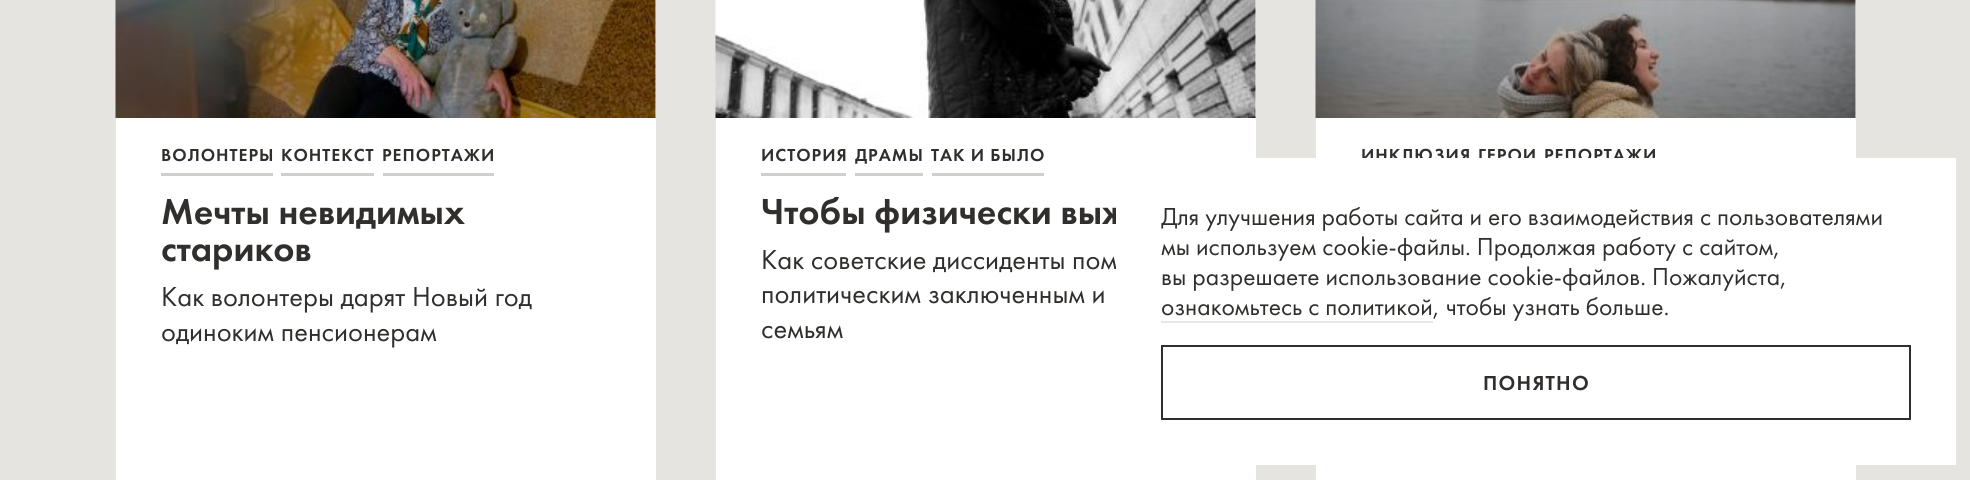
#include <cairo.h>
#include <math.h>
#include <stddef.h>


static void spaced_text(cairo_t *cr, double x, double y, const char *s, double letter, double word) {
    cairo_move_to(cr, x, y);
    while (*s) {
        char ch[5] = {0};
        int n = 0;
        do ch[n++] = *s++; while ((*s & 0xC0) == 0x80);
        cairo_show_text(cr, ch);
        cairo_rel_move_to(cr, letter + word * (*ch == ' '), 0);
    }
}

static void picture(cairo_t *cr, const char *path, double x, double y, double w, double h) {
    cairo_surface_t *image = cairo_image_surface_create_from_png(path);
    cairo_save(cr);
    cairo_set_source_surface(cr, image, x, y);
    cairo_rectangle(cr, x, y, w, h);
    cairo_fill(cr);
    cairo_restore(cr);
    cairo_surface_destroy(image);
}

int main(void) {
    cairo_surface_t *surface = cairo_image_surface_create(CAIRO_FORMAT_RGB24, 1970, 480);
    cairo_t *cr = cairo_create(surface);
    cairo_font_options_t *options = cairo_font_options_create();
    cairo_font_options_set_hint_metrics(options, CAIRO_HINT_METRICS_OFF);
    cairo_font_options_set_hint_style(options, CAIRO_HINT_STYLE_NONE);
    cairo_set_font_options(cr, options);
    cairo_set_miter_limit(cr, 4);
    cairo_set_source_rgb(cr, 0.902, 0.894, 0.882);
    cairo_paint(cr);
    cairo_set_source_rgb(cr, 1, 1, 1);
    cairo_rectangle(cr, 116, 0, 540, 480);
    cairo_fill(cr);
    picture(cr, "img1.png", 115, 0, 541, 118);
    cairo_select_font_face(cr, "Futura PT Medium", CAIRO_FONT_SLANT_NORMAL, CAIRO_FONT_WEIGHT_NORMAL);
    cairo_set_font_size(cr, 18);
    cairo_set_source_rgb(cr, 0.188, 0.184, 0.176);
    spaced_text(cr, 161, 161, "ВОЛОНТЕРЫ", 1, 0);
    cairo_set_source_rgb(cr, 0.816, 0.812, 0.8);
    cairo_rectangle(cr, 161, 173, 112, 3);
    cairo_fill(cr);
    cairo_set_source_rgb(cr, 0.188, 0.184, 0.176);
    spaced_text(cr, 281, 161, "КОНТЕКСТ", 1, 0);
    cairo_set_source_rgb(cr, 0.816, 0.812, 0.8);
    cairo_rectangle(cr, 281, 173, 93, 3);
    cairo_fill(cr);
    cairo_set_source_rgb(cr, 0.188, 0.184, 0.176);
    spaced_text(cr, 382, 161, "РЕПОРТАЖИ", 1, 0);
    cairo_set_source_rgb(cr, 0.816, 0.812, 0.8);
    cairo_rectangle(cr, 383, 173, 111, 3);
    cairo_fill(cr);
    cairo_set_font_size(cr, 37.5);
    cairo_set_source_rgb(cr, 0.188, 0.184, 0.176);
    cairo_move_to(cr, 161, 224);
    cairo_show_text(cr, "Мечты невидимых");
    cairo_move_to(cr, 161, 261);
    cairo_show_text(cr, "стариков");
    cairo_select_font_face(cr, "Futura PT", CAIRO_FONT_SLANT_NORMAL, CAIRO_FONT_WEIGHT_NORMAL);
    cairo_set_font_size(cr, 28.5);
    cairo_move_to(cr, 161, 306);
    cairo_show_text(cr, "Как волонтеры дарят Новый год");
    cairo_move_to(cr, 161, 341);
    cairo_show_text(cr, "одиноким пенсионерам");
    cairo_set_source_rgb(cr, 1, 1, 1);
    cairo_rectangle(cr, 716, 0, 540, 480);
    cairo_fill(cr);
    picture(cr, "img2.png", 715, 0, 541, 118);
    cairo_select_font_face(cr, "Futura PT Medium", CAIRO_FONT_SLANT_NORMAL, CAIRO_FONT_WEIGHT_NORMAL);
    cairo_set_font_size(cr, 18);
    cairo_set_source_rgb(cr, 0.188, 0.184, 0.176);
    spaced_text(cr, 761, 161, "ИСТОРИЯ", 1, 0);
    cairo_set_source_rgb(cr, 0.816, 0.812, 0.8);
    cairo_rectangle(cr, 761, 173, 85, 3);
    cairo_fill(cr);
    cairo_set_source_rgb(cr, 0.188, 0.184, 0.176);
    spaced_text(cr, 855, 161, "ДРАМЫ", 1, 0);
    cairo_set_source_rgb(cr, 0.816, 0.812, 0.8);
    cairo_rectangle(cr, 855, 173, 68, 3);
    cairo_fill(cr);
    cairo_set_source_rgb(cr, 0.188, 0.184, 0.176);
    spaced_text(cr, 931, 161, "ТАК И БЫЛО", 1, 0);
    cairo_set_source_rgb(cr, 0.816, 0.812, 0.8);
    cairo_rectangle(cr, 932, 173, 112, 3);
    cairo_fill(cr);
    cairo_set_font_size(cr, 37.5);
    cairo_set_source_rgb(cr, 0.188, 0.184, 0.176);
    cairo_move_to(cr, 761, 224);
    cairo_show_text(cr, "Чтобы физически выж");
    cairo_select_font_face(cr, "Futura PT", CAIRO_FONT_SLANT_NORMAL, CAIRO_FONT_WEIGHT_NORMAL);
    cairo_set_font_size(cr, 28.5);
    cairo_move_to(cr, 761, 269);
    cairo_show_text(cr, "Как советские диссиденты пом");
    cairo_move_to(cr, 761, 303);
    cairo_show_text(cr, "политическим заключенным и");
    cairo_move_to(cr, 761, 338);
    cairo_show_text(cr, "семьям");
    cairo_set_source_rgb(cr, 1, 1, 1);
    cairo_rectangle(cr, 1316, 0, 540, 480);
    cairo_fill(cr);
    picture(cr, "img3.png", 1315, 0, 541, 118);
    cairo_select_font_face(cr, "Futura PT Medium", CAIRO_FONT_SLANT_NORMAL, CAIRO_FONT_WEIGHT_NORMAL);
    cairo_set_font_size(cr, 18);
    cairo_set_source_rgb(cr, 0.188, 0.184, 0.176);
    spaced_text(cr, 1361, 161, "ИНКЛЮЗИЯ", 1, 0);
    spaced_text(cr, 1478, 161, "ГЕРОИ", 1, 0);
    spaced_text(cr, 1544, 161, "РЕПОРТАЖИ", 1, 0);
    cairo_set_source_rgb(cr, 1, 1, 1);
    cairo_rectangle(cr, 1116, 158, 840, 307);
    cairo_fill(cr);
    cairo_select_font_face(cr, "Futura PT", CAIRO_FONT_SLANT_NORMAL, CAIRO_FONT_WEIGHT_NORMAL);
    cairo_set_font_size(cr, 25.5);
    cairo_set_source_rgb(cr, 0.188, 0.184, 0.176);
    cairo_move_to(cr, 1161, 225);
    cairo_show_text(cr, "Для улучшения работы сайта и его взаимодействия с пользователями");
    cairo_move_to(cr, 1161, 255);
    cairo_show_text(cr, "мы используем cookie-файлы. Продолжая работу с сайтом,");
    cairo_move_to(cr, 1161, 285);
    cairo_show_text(cr, "вы разрешаете использование cookie-файлов. Пожалуйста,");
    cairo_move_to(cr, 1161, 315);
    cairo_show_text(cr, "ознакомьтесь с политикой, чтобы узнать больше.");
    cairo_set_source_rgb(cr, 0.902, 0.902, 0.902);
    cairo_rectangle(cr, 1161, 321, 272, 2);
    cairo_fill(cr);
    cairo_rectangle(cr, 1162, 346, 748, 73);
    cairo_set_source_rgb(cr, 0.188, 0.184, 0.176);
    cairo_stroke(cr);
    cairo_select_font_face(cr, "Futura PT Medium", CAIRO_FONT_SLANT_NORMAL, CAIRO_FONT_WEIGHT_NORMAL);
    cairo_set_font_size(cr, 21);
    spaced_text(cr, 1483, 390, "ПОНЯТНО", 1.25, 0);
    cairo_surface_write_to_png(surface, "page.png");
    cairo_font_options_destroy(options);
    cairo_destroy(cr);
    cairo_surface_destroy(surface);
    return 0;
}
